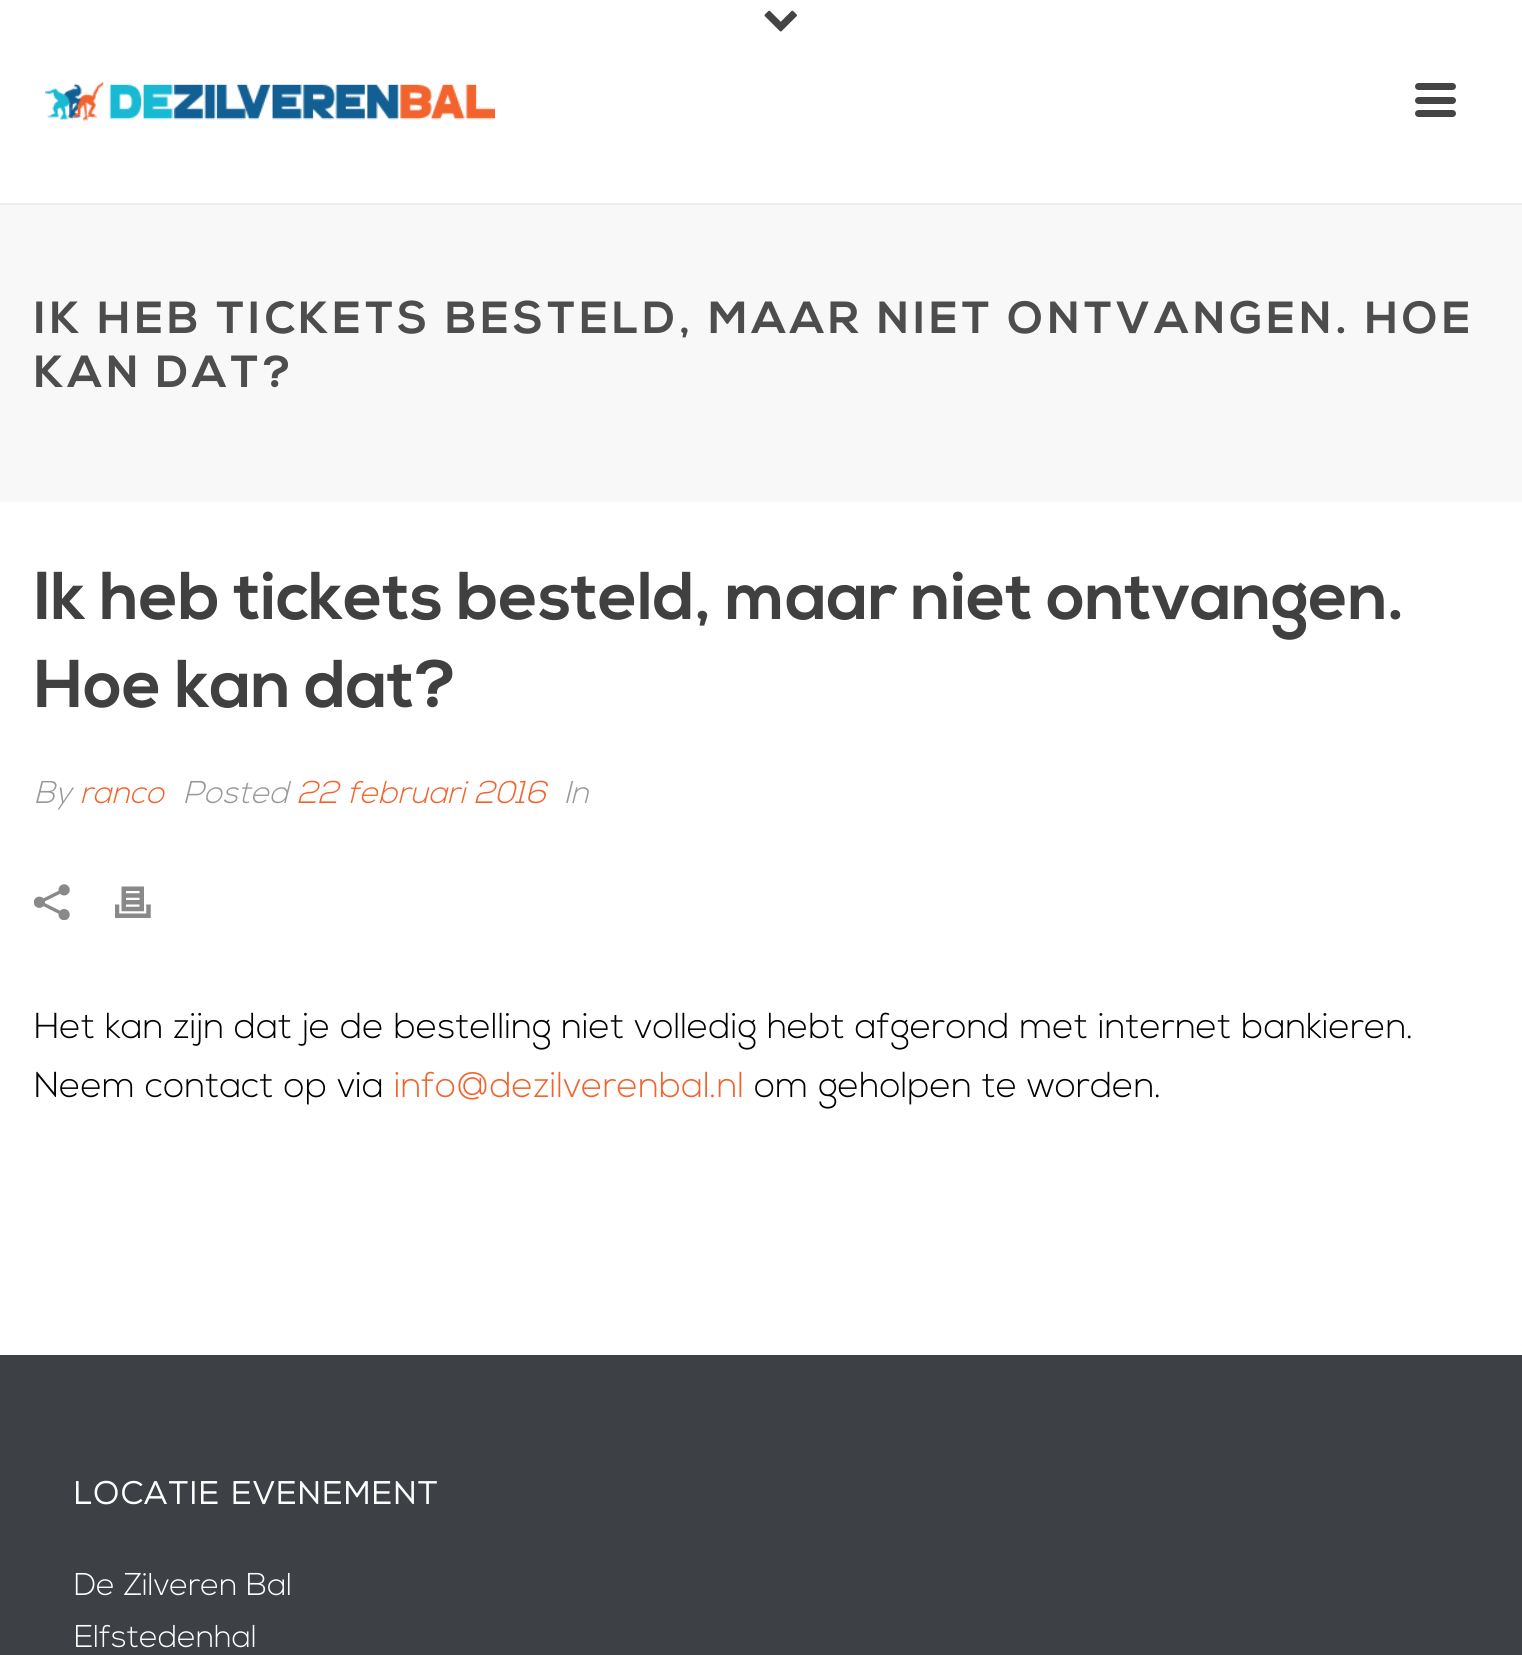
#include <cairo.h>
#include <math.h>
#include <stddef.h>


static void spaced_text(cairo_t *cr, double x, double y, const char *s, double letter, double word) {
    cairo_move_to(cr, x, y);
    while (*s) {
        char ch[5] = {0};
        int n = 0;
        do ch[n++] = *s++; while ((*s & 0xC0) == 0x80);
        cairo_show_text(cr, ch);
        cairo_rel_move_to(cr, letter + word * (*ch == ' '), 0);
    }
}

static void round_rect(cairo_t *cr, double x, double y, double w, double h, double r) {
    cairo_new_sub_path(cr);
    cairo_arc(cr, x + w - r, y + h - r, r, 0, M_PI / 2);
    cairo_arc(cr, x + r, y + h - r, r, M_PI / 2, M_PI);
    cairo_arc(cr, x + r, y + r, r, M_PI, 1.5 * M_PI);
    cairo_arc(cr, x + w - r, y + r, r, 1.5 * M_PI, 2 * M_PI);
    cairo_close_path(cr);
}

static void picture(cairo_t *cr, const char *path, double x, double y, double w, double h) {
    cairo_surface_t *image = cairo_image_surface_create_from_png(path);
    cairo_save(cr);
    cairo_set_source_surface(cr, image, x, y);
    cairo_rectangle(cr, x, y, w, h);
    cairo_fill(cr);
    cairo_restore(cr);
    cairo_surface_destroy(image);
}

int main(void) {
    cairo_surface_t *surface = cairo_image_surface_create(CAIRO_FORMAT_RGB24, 1522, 1655);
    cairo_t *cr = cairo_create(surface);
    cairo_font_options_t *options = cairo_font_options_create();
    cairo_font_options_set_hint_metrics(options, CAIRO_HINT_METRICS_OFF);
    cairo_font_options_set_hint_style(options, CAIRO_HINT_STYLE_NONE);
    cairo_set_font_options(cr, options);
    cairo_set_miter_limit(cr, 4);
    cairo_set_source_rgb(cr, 1, 1, 1);
    cairo_paint(cr);
    cairo_set_source_rgb(cr, 0.969, 0.969, 0.969);
    cairo_rectangle(cr, 0, 205, 1522, 297);
    cairo_fill(cr);
    cairo_set_source_rgb(cr, 0.929, 0.929, 0.929);
    cairo_rectangle(cr, 0, 203, 1522, 2);
    cairo_fill(cr);
    picture(cr, "img1.png", 764, 10, 33, 22);
    picture(cr, "img2.png", 45, 82, 450, 39);
    cairo_set_source_rgb(cr, 0.267, 0.267, 0.267);
    round_rect(cr, 1415, 83, 41, 7, 3.5);
    cairo_fill(cr);
    round_rect(cr, 1415, 97, 41, 7, 3.5);
    cairo_fill(cr);
    round_rect(cr, 1415, 110, 41, 7, 3.5);
    cairo_fill(cr);
    cairo_select_font_face(cr, "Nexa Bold", CAIRO_FONT_SLANT_NORMAL, CAIRO_FONT_WEIGHT_BOLD);
    cairo_set_font_size(cr, 45);
    cairo_set_source_rgb(cr, 0.302, 0.302, 0.302);
    spaced_text(cr, 34, 333, "IK HEB TICKETS BESTELD, MAAR NIET ONTVANGEN. HOE", 4.5, 0);
    spaced_text(cr, 34, 387, "KAN DAT?", 4.5, 0);
    cairo_set_font_size(cr, 67.5);
    cairo_set_source_rgb(cr, 0.251, 0.251, 0.251);
    cairo_move_to(cr, 34, 619);
    cairo_show_text(cr, "Ik heb tickets besteld, maar niet ontvangen.");
    cairo_move_to(cr, 34, 707);
    cairo_show_text(cr, "Hoe kan dat?");
    cairo_select_font_face(cr, "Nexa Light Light", CAIRO_FONT_SLANT_ITALIC, CAIRO_FONT_WEIGHT_NORMAL);
    cairo_set_font_size(cr, 31.5);
    cairo_set_source_rgb(cr, 0.6, 0.6, 0.6);
    cairo_move_to(cr, 34, 803);
    cairo_show_text(cr, "By");
    cairo_set_source_rgb(cr, 0.949, 0.392, 0.173);
    cairo_move_to(cr, 80, 803);
    cairo_show_text(cr, "ranco");
    cairo_set_source_rgb(cr, 0.6, 0.6, 0.6);
    cairo_move_to(cr, 183, 803);
    cairo_show_text(cr, "Posted");
    cairo_set_source_rgb(cr, 0.949, 0.392, 0.173);
    cairo_move_to(cr, 297, 803);
    cairo_show_text(cr, "22 februari 2016");
    cairo_set_source_rgb(cr, 0.6, 0.6, 0.6);
    cairo_move_to(cr, 564, 803);
    cairo_show_text(cr, "In");
    picture(cr, "img3.png", 34, 884, 36, 36);
    picture(cr, "img4.png", 115, 886, 36, 32);
    cairo_select_font_face(cr, "Nexa Light Light", CAIRO_FONT_SLANT_NORMAL, CAIRO_FONT_WEIGHT_NORMAL);
    cairo_set_font_size(cr, 36);
    cairo_set_source_rgb(cr, 0, 0, 0);
    cairo_move_to(cr, 34, 1038);
    cairo_show_text(cr, "Het kan zijn dat je de bestelling niet volledig hebt afgerond met internet bankieren.");
    cairo_move_to(cr, 34, 1097);
    cairo_show_text(cr, "Neem contact op via");
    cairo_set_source_rgb(cr, 0.949, 0.392, 0.173);
    cairo_move_to(cr, 394, 1097);
    cairo_show_text(cr, "info@dezilverenbal.nl");
    cairo_set_source_rgb(cr, 0, 0, 0);
    cairo_move_to(cr, 754, 1097);
    cairo_show_text(cr, "om geholpen te worden.");
    cairo_set_source_rgb(cr, 0.239, 0.251, 0.271);
    cairo_rectangle(cr, 0, 1355, 1522, 300);
    cairo_fill(cr);
    cairo_select_font_face(cr, "Nexa Light", CAIRO_FONT_SLANT_NORMAL, CAIRO_FONT_WEIGHT_BOLD);
    cairo_set_font_size(cr, 31.5);
    cairo_set_source_rgb(cr, 1, 1, 1);
    spaced_text(cr, 74, 1504, "LOCATIE EVENEMENT", 2.25, 0);
    cairo_select_font_face(cr, "Nexa Light Light", CAIRO_FONT_SLANT_NORMAL, CAIRO_FONT_WEIGHT_NORMAL);
    cairo_move_to(cr, 74, 1595);
    cairo_show_text(cr, "De Zilveren Bal");
    cairo_move_to(cr, 74, 1647);
    cairo_show_text(cr, "Elfstedenhal");
    cairo_surface_write_to_png(surface, "page.png");
    cairo_font_options_destroy(options);
    cairo_destroy(cr);
    cairo_surface_destroy(surface);
    return 0;
}
